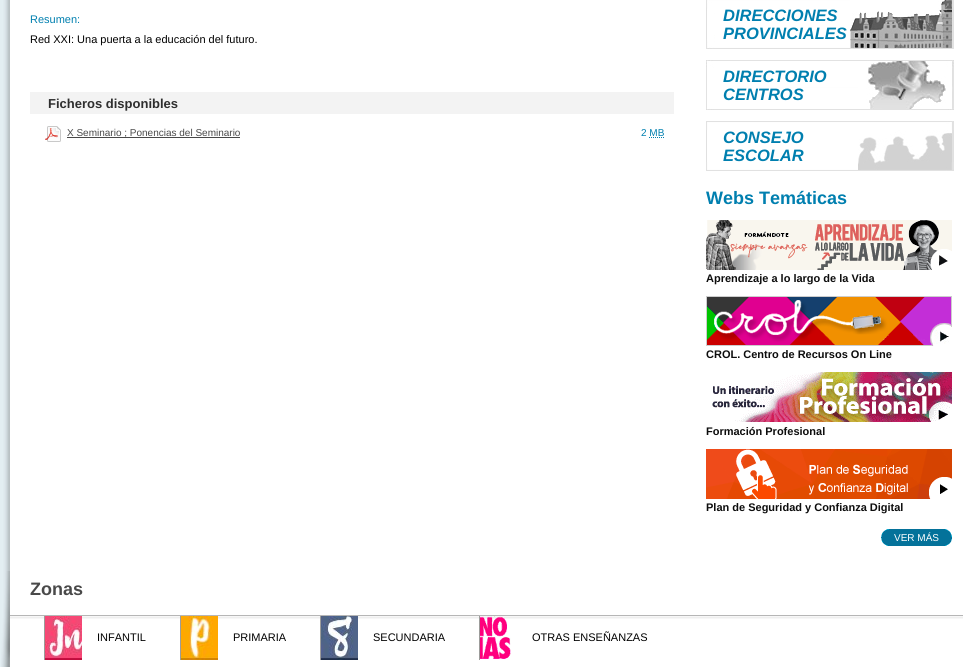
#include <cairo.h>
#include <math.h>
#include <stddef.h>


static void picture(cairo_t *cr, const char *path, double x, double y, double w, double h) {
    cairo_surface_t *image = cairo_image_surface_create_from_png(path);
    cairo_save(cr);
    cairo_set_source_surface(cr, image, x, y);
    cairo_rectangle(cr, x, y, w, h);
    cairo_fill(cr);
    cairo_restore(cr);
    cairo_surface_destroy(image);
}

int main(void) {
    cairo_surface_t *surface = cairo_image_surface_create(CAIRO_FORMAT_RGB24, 963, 667);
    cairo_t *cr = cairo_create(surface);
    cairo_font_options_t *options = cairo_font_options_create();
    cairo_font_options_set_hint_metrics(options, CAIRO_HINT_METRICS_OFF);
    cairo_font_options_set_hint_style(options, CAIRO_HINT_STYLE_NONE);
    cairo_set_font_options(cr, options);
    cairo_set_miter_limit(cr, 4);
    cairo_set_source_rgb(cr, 1, 1, 1);
    cairo_paint(cr);
    picture(cr, "img1.png", 0, 0, 10, 667);
    cairo_select_font_face(cr, "Liberation Sans", CAIRO_FONT_SLANT_NORMAL, CAIRO_FONT_WEIGHT_NORMAL);
    cairo_set_font_size(cr, 11);
    cairo_set_source_rgb(cr, 0, 0.498, 0.686);
    cairo_move_to(cr, 30, 23);
    cairo_show_text(cr, "Resumen:");
    cairo_set_source_rgb(cr, 0, 0, 0);
    cairo_move_to(cr, 30, 43);
    cairo_show_text(cr, "Red XXI: Una puerta a la educación del futuro.");
    cairo_set_source_rgb(cr, 0.953, 0.953, 0.953);
    cairo_rectangle(cr, 30, 92, 644, 22);
    cairo_fill(cr);
    cairo_select_font_face(cr, "Liberation Sans", CAIRO_FONT_SLANT_NORMAL, CAIRO_FONT_WEIGHT_BOLD);
    cairo_set_font_size(cr, 13);
    cairo_set_source_rgb(cr, 0.18, 0.18, 0.18);
    cairo_move_to(cr, 48, 108);
    cairo_show_text(cr, "Ficheros disponibles");
    picture(cr, "img2.png", 45, 126, 16, 16);
    cairo_set_source_rgb(cr, 0.282, 0.282, 0.282);
    cairo_rectangle(cr, 67, 137, 173, 1);
    cairo_fill(cr);
    cairo_select_font_face(cr, "Liberation Sans", CAIRO_FONT_SLANT_NORMAL, CAIRO_FONT_WEIGHT_NORMAL);
    cairo_set_font_size(cr, 10);
    cairo_set_source_rgb(cr, 0.286, 0.286, 0.286);
    cairo_move_to(cr, 67, 136);
    cairo_show_text(cr, "X Seminario ; Ponencias del Seminario");
    cairo_set_source_rgb(cr, 0, 0.498, 0.686);
    cairo_move_to(cr, 641, 136);
    cairo_show_text(cr, "2 MB");
    cairo_new_path(cr);
    cairo_move_to(cr, 649, 137.5);
    cairo_line_to(cr, 664, 137.5);
    cairo_set_line_width(cr, 1);
    cairo_set_dash(cr, (double[]){1, 1}, 2, 0);
    cairo_stroke(cr);
    picture(cr, "img3.png", 706, 0, 248, 49);
    cairo_select_font_face(cr, "Liberation Sans", CAIRO_FONT_SLANT_ITALIC, CAIRO_FONT_WEIGHT_BOLD);
    cairo_set_font_size(cr, 16.5);
    cairo_move_to(cr, 723, 21);
    cairo_show_text(cr, "DIRECCIONES");
    cairo_move_to(cr, 723, 39);
    cairo_show_text(cr, "PROVINCIALES");
    picture(cr, "img4.png", 706, 60, 248, 50);
    cairo_move_to(cr, 723, 82);
    cairo_show_text(cr, "DIRECTORIO");
    cairo_move_to(cr, 723, 100);
    cairo_show_text(cr, "CENTROS");
    picture(cr, "img5.png", 706, 121, 248, 50);
    cairo_move_to(cr, 723, 143);
    cairo_show_text(cr, "CONSEJO");
    cairo_move_to(cr, 723, 161);
    cairo_show_text(cr, "ESCOLAR");
    cairo_select_font_face(cr, "Liberation Sans", CAIRO_FONT_SLANT_NORMAL, CAIRO_FONT_WEIGHT_BOLD);
    cairo_set_font_size(cr, 18);
    cairo_move_to(cr, 706, 204);
    cairo_show_text(cr, "Webs Temáticas");
    picture(cr, "img6.png", 706, 220, 246, 50);
    cairo_set_font_size(cr, 11);
    cairo_set_source_rgb(cr, 0.051, 0.051, 0.051);
    cairo_move_to(cr, 706, 282);
    cairo_show_text(cr, "Aprendizaje a lo largo de la Vida");
    picture(cr, "img7.png", 706, 296, 246, 50);
    cairo_move_to(cr, 706, 358);
    cairo_show_text(cr, "CROL. Centro de Recursos On Line");
    picture(cr, "img8.png", 712, 372, 240, 50);
    cairo_move_to(cr, 706, 435);
    cairo_show_text(cr, "Formación Profesional");
    picture(cr, "img9.png", 706, 449, 246, 50);
    cairo_move_to(cr, 706, 511);
    cairo_show_text(cr, "Plan de Seguridad y Confianza Digital");
    cairo_set_source_rgb(cr, 0.016, 0.447, 0.604);
    cairo_rectangle(cr, 881, 529, 71, 17);
    cairo_fill(cr);
    picture(cr, "img10.png", 881, 529, 8, 8);
    cairo_select_font_face(cr, "Liberation Sans", CAIRO_FONT_SLANT_NORMAL, CAIRO_FONT_WEIGHT_NORMAL);
    cairo_set_font_size(cr, 10);
    cairo_set_source_rgb(cr, 1, 1, 1);
    cairo_move_to(cr, 894, 541);
    cairo_show_text(cr, "VER MÁS");
    picture(cr, "img11.png", 945, 529, 7, 8);
    picture(cr, "img12.png", 881, 538, 7, 8);
    picture(cr, "img13.png", 945, 539, 7, 7);
    picture(cr, "img14.png", 1, 571, 9, 96);
    cairo_select_font_face(cr, "Liberation Sans", CAIRO_FONT_SLANT_NORMAL, CAIRO_FONT_WEIGHT_BOLD);
    cairo_set_font_size(cr, 18);
    cairo_set_source_rgb(cr, 0.286, 0.286, 0.286);
    cairo_move_to(cr, 30, 595);
    cairo_show_text(cr, "Zonas");
    picture(cr, "img15.png", 10, 615, 953, 4);
    picture(cr, "img16.png", 45, 616, 37, 44);
    cairo_set_source_rgb(cr, 0.612, 0.612, 0.604);
    cairo_rectangle(cr, 44, 616, 1, 44);
    cairo_fill(cr);
    cairo_select_font_face(cr, "Liberation Sans", CAIRO_FONT_SLANT_NORMAL, CAIRO_FONT_WEIGHT_NORMAL);
    cairo_set_font_size(cr, 11);
    cairo_set_source_rgb(cr, 0, 0, 0);
    cairo_move_to(cr, 97, 641);
    cairo_show_text(cr, "INFANTIL");
    picture(cr, "img17.png", 181, 616, 37, 44);
    cairo_set_source_rgb(cr, 0.612, 0.612, 0.604);
    cairo_rectangle(cr, 180, 616, 1, 44);
    cairo_fill(cr);
    cairo_set_source_rgb(cr, 0, 0, 0);
    cairo_move_to(cr, 233, 641);
    cairo_show_text(cr, "PRIMARIA");
    picture(cr, "img18.png", 321, 616, 37, 44);
    cairo_set_source_rgb(cr, 0.612, 0.612, 0.604);
    cairo_rectangle(cr, 320, 616, 1, 44);
    cairo_fill(cr);
    cairo_set_source_rgb(cr, 0, 0, 0);
    cairo_move_to(cr, 373, 641);
    cairo_show_text(cr, "SECUNDARIA");
    picture(cr, "img19.png", 480, 616, 31, 43);
    cairo_set_source_rgb(cr, 0.612, 0.612, 0.604);
    cairo_rectangle(cr, 479, 616, 1, 44);
    cairo_fill(cr);
    cairo_set_source_rgb(cr, 0, 0, 0);
    cairo_move_to(cr, 532, 641);
    cairo_show_text(cr, "OTRAS ENSEÑANZAS");
    cairo_surface_write_to_png(surface, "page.png");
    cairo_font_options_destroy(options);
    cairo_destroy(cr);
    cairo_surface_destroy(surface);
    return 0;
}
